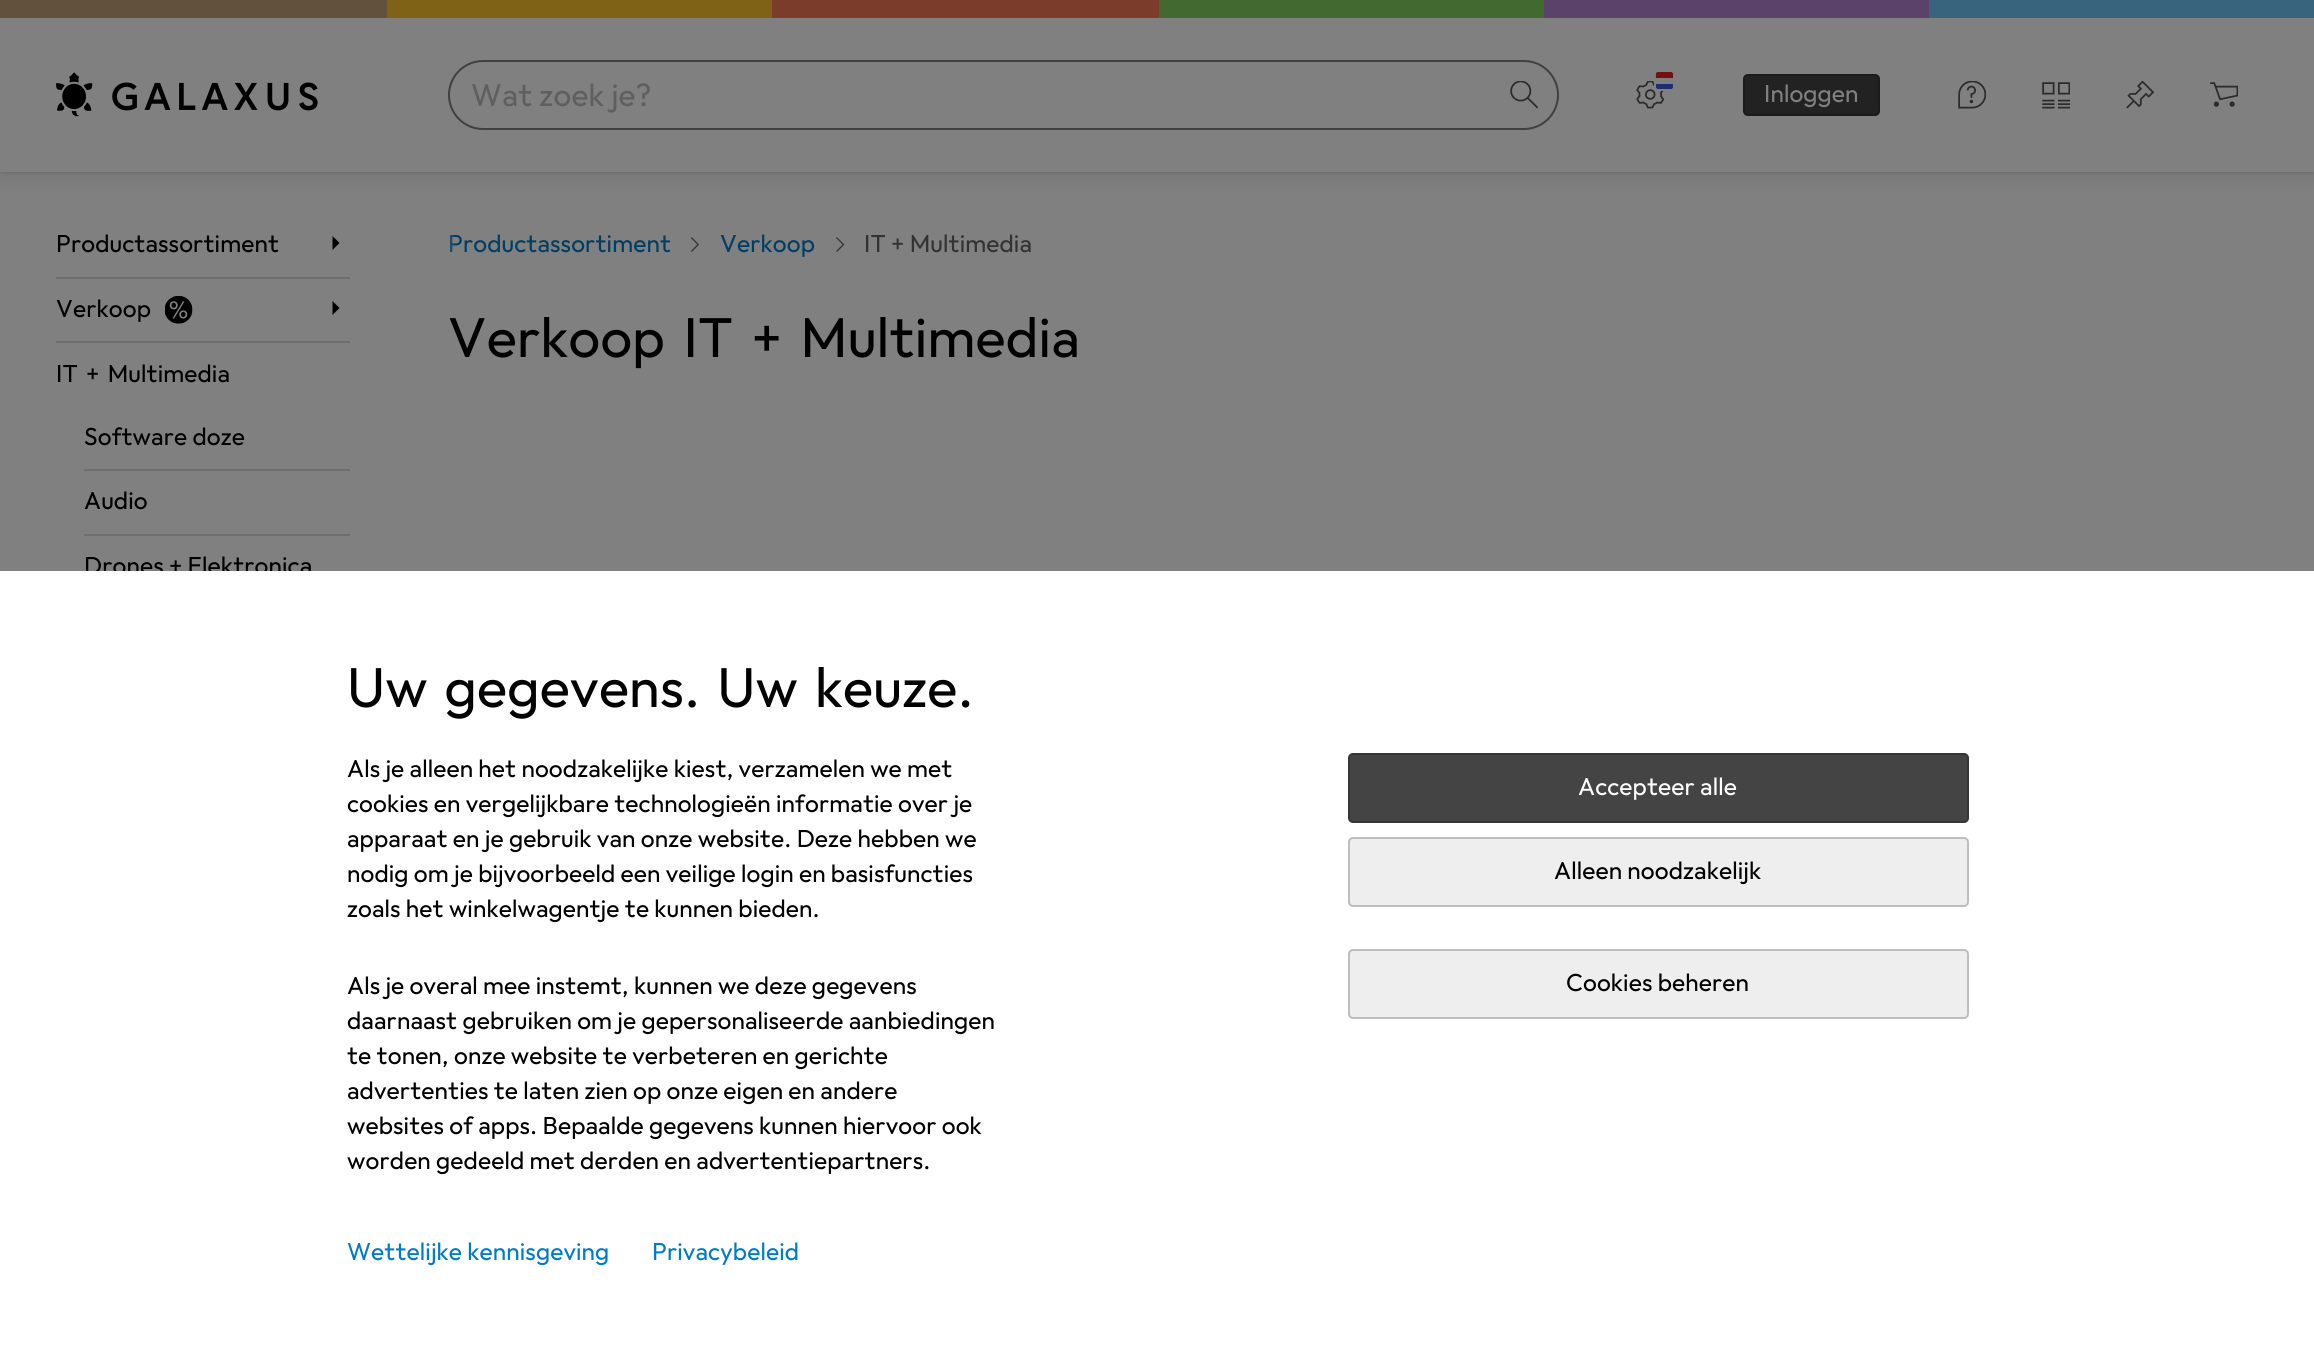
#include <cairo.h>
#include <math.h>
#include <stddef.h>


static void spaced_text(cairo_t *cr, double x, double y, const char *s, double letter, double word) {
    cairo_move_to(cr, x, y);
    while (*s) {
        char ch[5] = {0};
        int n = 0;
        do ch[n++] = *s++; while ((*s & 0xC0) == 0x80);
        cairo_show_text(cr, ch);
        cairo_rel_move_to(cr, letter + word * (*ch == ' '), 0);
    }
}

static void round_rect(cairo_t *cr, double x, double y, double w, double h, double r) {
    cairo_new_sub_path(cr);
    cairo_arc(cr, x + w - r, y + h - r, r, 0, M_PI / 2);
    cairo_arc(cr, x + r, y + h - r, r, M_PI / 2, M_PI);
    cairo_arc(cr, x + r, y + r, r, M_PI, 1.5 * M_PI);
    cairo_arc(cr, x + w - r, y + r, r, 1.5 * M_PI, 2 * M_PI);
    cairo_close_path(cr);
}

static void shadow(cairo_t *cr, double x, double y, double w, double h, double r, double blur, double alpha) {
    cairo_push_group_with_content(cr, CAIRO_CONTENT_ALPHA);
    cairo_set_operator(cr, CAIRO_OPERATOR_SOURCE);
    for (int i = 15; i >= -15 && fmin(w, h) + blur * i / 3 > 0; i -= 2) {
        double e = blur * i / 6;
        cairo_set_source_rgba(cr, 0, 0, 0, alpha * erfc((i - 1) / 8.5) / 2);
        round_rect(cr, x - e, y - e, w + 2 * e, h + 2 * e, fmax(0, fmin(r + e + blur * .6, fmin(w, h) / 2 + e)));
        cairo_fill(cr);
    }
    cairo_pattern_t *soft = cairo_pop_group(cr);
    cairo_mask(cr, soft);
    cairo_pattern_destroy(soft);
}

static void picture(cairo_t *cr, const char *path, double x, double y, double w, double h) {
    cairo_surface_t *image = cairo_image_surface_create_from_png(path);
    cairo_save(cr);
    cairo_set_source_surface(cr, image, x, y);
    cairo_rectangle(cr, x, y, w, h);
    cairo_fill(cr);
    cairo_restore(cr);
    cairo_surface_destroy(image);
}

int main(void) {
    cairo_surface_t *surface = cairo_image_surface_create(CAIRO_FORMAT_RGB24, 2314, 1367);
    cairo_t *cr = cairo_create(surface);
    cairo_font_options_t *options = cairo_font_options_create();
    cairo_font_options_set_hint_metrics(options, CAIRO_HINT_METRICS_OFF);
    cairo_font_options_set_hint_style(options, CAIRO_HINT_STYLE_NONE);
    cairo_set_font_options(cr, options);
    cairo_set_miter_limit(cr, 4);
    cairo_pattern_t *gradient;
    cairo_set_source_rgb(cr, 0.502, 0.502, 0.502);
    cairo_paint(cr);
    cairo_set_source_rgb(cr, 0, 0, 0);
    shadow(cr, 0, 7, 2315, 172, 0, 7, 0.08);
    shadow(cr, 0, 0, 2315, 172, 0, 2, 0.16);
    cairo_set_source_rgb(cr, 0.502, 0.502, 0.502);
    cairo_rectangle(cr, 0, 18, 2314, 154);
    cairo_fill(cr);
    cairo_set_source_rgb(cr, 0.384, 0.318, 0.235);
    cairo_rectangle(cr, 0, 0, 387, 18);
    cairo_fill(cr);
    cairo_set_source_rgb(cr, 0.502, 0.384, 0.09);
    cairo_rectangle(cr, 387, 0, 385, 18);
    cairo_fill(cr);
    cairo_set_source_rgb(cr, 0.482, 0.235, 0.173);
    cairo_rectangle(cr, 772, 0, 387, 18);
    cairo_fill(cr);
    cairo_set_source_rgb(cr, 0.259, 0.412, 0.188);
    cairo_rectangle(cr, 1159, 0, 385, 18);
    cairo_fill(cr);
    cairo_set_source_rgb(cr, 0.353, 0.259, 0.416);
    cairo_rectangle(cr, 1544, 0, 385, 18);
    cairo_fill(cr);
    cairo_set_source_rgb(cr, 0.224, 0.392, 0.49);
    cairo_rectangle(cr, 1929, 0, 385, 18);
    cairo_fill(cr);
    picture(cr, "img1.png", 56, 72, 262, 45);
    round_rect(cr, 449, 61, 1109, 68, 34);
    cairo_set_source_rgb(cr, 0.251, 0.251, 0.251);
    cairo_stroke(cr);
    cairo_select_font_face(cr, "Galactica", CAIRO_FONT_SLANT_NORMAL, CAIRO_FONT_WEIGHT_NORMAL);
    cairo_set_font_size(cr, 31.5);
    cairo_set_source_rgb(cr, 0.373, 0.373, 0.373);
    spaced_text(cr, 471, 106, "Wat zoek je?", 0.2, 0);
    picture(cr, "img2.png", 1510, 81, 28, 28);
    picture(cr, "img3.png", 1636, 81, 28, 28);
    round_rect(cr, 1655, 71, 19, 19, 3);
    cairo_set_source_rgb(cr, 0.502, 0.502, 0.502);
    cairo_stroke(cr);
    cairo_set_source_rgb(cr, 0.486, 0.494, 0.502);
    cairo_new_path(cr);
    cairo_move_to(cr, 1658, 72);
    cairo_curve_to(cr, 1657, 72, 1656, 73, 1656, 74);
    cairo_line_to(cr, 1656, 87);
    cairo_curve_to(cr, 1656, 88, 1657, 89, 1658, 89);
    cairo_line_to(cr, 1671, 89);
    cairo_curve_to(cr, 1672, 89, 1673, 88, 1673, 87);
    cairo_line_to(cr, 1673, 74);
    cairo_curve_to(cr, 1673, 73, 1672, 72, 1671, 72);
    cairo_close_path(cr);
    cairo_fill(cr);
    cairo_set_source_rgb(cr, 0.467, 0.059, 0.059);
    cairo_new_path(cr);
    cairo_move_to(cr, 1658, 72);
    cairo_curve_to(cr, 1655, 72, 1656, 76.5, 1656, 78);
    cairo_line_to(cr, 1673, 78);
    cairo_curve_to(cr, 1673, 76.5, 1674, 72, 1671, 72);
    cairo_close_path(cr);
    cairo_fill(cr);
    cairo_set_source_rgb(cr, 0.122, 0.173, 0.431);
    cairo_new_path(cr);
    cairo_move_to(cr, 1656, 84);
    cairo_line_to(cr, 1656, 87);
    cairo_curve_to(cr, 1656, 88, 1657, 89, 1658, 89);
    cairo_line_to(cr, 1671, 89);
    cairo_curve_to(cr, 1672, 89, 1673, 88, 1673, 87);
    cairo_line_to(cr, 1673, 84);
    cairo_close_path(cr);
    cairo_fill(cr);
    cairo_set_source_rgb(cr, 0.133, 0.133, 0.133);
    round_rect(cr, 1743, 74, 137, 42, 5);
    cairo_fill(cr);
    round_rect(cr, 1744, 75, 135, 40, 4);
    cairo_set_source_rgba(cr, 0, 0, 0, 0.2);
    cairo_stroke(cr);
    cairo_set_font_size(cr, 24.5);
    cairo_set_source_rgb(cr, 0.502, 0.502, 0.502);
    spaced_text(cr, 1764, 102, "Inloggen", 0.12, 0);
    picture(cr, "img4.png", 1958, 81, 28, 28);
    picture(cr, "img5.png", 2042, 82, 28, 27);
    picture(cr, "img6.png", 2126, 81, 28, 28);
    picture(cr, "img7.png", 2210, 82, 28, 25);
    cairo_set_source_rgb(cr, 0.435, 0.435, 0.435);
    cairo_rectangle(cr, 56, 277, 294, 2);
    cairo_fill(cr);
    cairo_set_source_rgb(cr, 0, 0, 0);
    spaced_text(cr, 56, 252, "Productassortiment", 0.12, 0);
    cairo_new_path(cr);
    cairo_move_to(cr, 332.5, 250);
    cairo_line_to(cr, 332.5, 236);
    cairo_line_to(cr, 339.5, 243);
    cairo_close_path(cr);
    cairo_fill(cr);
    cairo_set_source_rgb(cr, 0.435, 0.435, 0.435);
    cairo_rectangle(cr, 56, 341, 294, 2);
    cairo_fill(cr);
    cairo_set_source_rgb(cr, 0, 0, 0);
    spaced_text(cr, 56, 317, "Verkoop", 0.12, 0);
    picture(cr, "img8.png", 165, 296, 28, 28);
    cairo_new_path(cr);
    cairo_move_to(cr, 332.5, 315);
    cairo_line_to(cr, 332.5, 301);
    cairo_line_to(cr, 339.5, 308);
    cairo_close_path(cr);
    cairo_fill(cr);
    spaced_text(cr, 56, 382, "IT + Multimedia", 0.12, 3);
    cairo_set_source_rgb(cr, 0.435, 0.435, 0.435);
    cairo_rectangle(cr, 84, 469, 266, 2);
    cairo_fill(cr);
    cairo_set_source_rgb(cr, 0, 0, 0);
    spaced_text(cr, 84, 445, "Software doze", 0.12, 0);
    cairo_set_source_rgb(cr, 0.435, 0.435, 0.435);
    cairo_rectangle(cr, 84, 534, 266, 2);
    cairo_fill(cr);
    cairo_set_source_rgb(cr, 0, 0, 0);
    spaced_text(cr, 84, 509, "Audio", 0.12, 0);
    spaced_text(cr, 84, 574, "Drones + Elektronica", 0.12, 0);
    cairo_set_source_rgb(cr, 0, 0.243, 0.392);
    spaced_text(cr, 448, 252, "Productassortiment", 0.12, 0);
    picture(cr, "img9.png", 691, 237, 8, 15);
    spaced_text(cr, 720, 252, "Verkoop", 0.12, 0);
    picture(cr, "img10.png", 836, 237, 9, 15);
    cairo_set_source_rgb(cr, 0.2, 0.2, 0.2);
    spaced_text(cr, 864, 252, "IT + Multimedia", 0.12, 0);
    gradient = cairo_pattern_create_linear(427, 245, 455, 245);
    cairo_pattern_add_color_stop_rgba(gradient, 0, 0.502, 0.502, 0.502, 1);
    cairo_pattern_add_color_stop_rgba(gradient, 0.49, 0.502, 0.502, 0.502, 0.85);
    cairo_pattern_add_color_stop_rgba(gradient, 1, 0.502, 0.502, 0.502, 0);
    cairo_set_source(cr, gradient);
    cairo_pattern_destroy(gradient);
    cairo_rectangle(cr, 450, 235, 5, 17);
    cairo_fill(cr);
    cairo_set_font_size(cr, 56);
    cairo_set_source_rgb(cr, 0, 0, 0);
    spaced_text(cr, 448, 357, "Verkoop IT + Multimedia", 0.25, 6.5);
    cairo_set_source_rgb(cr, 1, 1, 1);
    cairo_rectangle(cr, 0, 571, 2314, 796);
    cairo_fill(cr);
    cairo_set_source_rgb(cr, 0, 0, 0);
    spaced_text(cr, 347, 707, "Uw gegevens. Uw keuze.", 0.25, 5);
    cairo_set_font_size(cr, 24.5);
    spaced_text(cr, 347, 777, "Als je alleen het noodzakelijke kiest, verzamelen we met", 0.12, 0);
    spaced_text(cr, 347, 812, "cookies en vergelijkbare technologieën informatie over je", 0.12, 0);
    spaced_text(cr, 347, 847, "apparaat en je gebruik van onze website. Deze hebben we", 0.12, 0);
    spaced_text(cr, 347, 882, "nodig om je bijvoorbeeld een veilige login en basisfuncties", 0.12, 0);
    spaced_text(cr, 347, 917, "zoals het winkelwagentje te kunnen bieden.", 0.12, 0);
    spaced_text(cr, 347, 994, "Als je overal mee instemt, kunnen we deze gegevens", 0.12, 0);
    spaced_text(cr, 347, 1029, "daarnaast gebruiken om je gepersonaliseerde aanbiedingen", 0.12, 0);
    spaced_text(cr, 347, 1064, "te tonen, onze website te verbeteren en gerichte", 0.12, 0);
    spaced_text(cr, 347, 1099, "advertenties te laten zien op onze eigen en andere", 0.12, 0);
    spaced_text(cr, 347, 1134, "websites of apps. Bepaalde gegevens kunnen hiervoor ook", 0.12, 0);
    spaced_text(cr, 347, 1169, "worden gedeeld met derden en advertentiepartners.", 0.12, 0);
    cairo_set_source_rgb(cr, 0.267, 0.267, 0.267);
    round_rect(cr, 1348, 753, 621, 70, 5);
    cairo_fill(cr);
    round_rect(cr, 1349, 754, 619, 68, 4);
    cairo_set_source_rgba(cr, 0, 0, 0, 0.2);
    cairo_stroke(cr);
    cairo_set_source_rgb(cr, 1, 1, 1);
    spaced_text(cr, 1578, 795, "Accepteer alle", 0.12, 0);
    cairo_set_source_rgb(cr, 0.933, 0.933, 0.933);
    round_rect(cr, 1348, 837, 621, 70, 5);
    cairo_fill(cr);
    round_rect(cr, 1349, 838, 619, 68, 4);
    cairo_set_source_rgba(cr, 0, 0, 0, 0.2);
    cairo_stroke(cr);
    cairo_set_source_rgb(cr, 0, 0, 0);
    spaced_text(cr, 1554, 879, "Alleen noodzakelijk", 0.12, 0);
    cairo_set_source_rgb(cr, 0.933, 0.933, 0.933);
    round_rect(cr, 1348, 949, 621, 70, 5);
    cairo_fill(cr);
    round_rect(cr, 1349, 950, 619, 68, 4);
    cairo_set_source_rgba(cr, 0, 0, 0, 0.2);
    cairo_stroke(cr);
    cairo_set_source_rgb(cr, 0, 0, 0);
    spaced_text(cr, 1566, 991, "Cookies beheren", 0.12, 0);
    cairo_set_source_rgb(cr, 0, 0.482, 0.78);
    spaced_text(cr, 347, 1260, "Wettelijke kennisgeving", 0.12, 0);
    spaced_text(cr, 652, 1260, "Privacybeleid", 0.12, 0);
    cairo_surface_write_to_png(surface, "page.png");
    cairo_font_options_destroy(options);
    cairo_destroy(cr);
    cairo_surface_destroy(surface);
    return 0;
}
